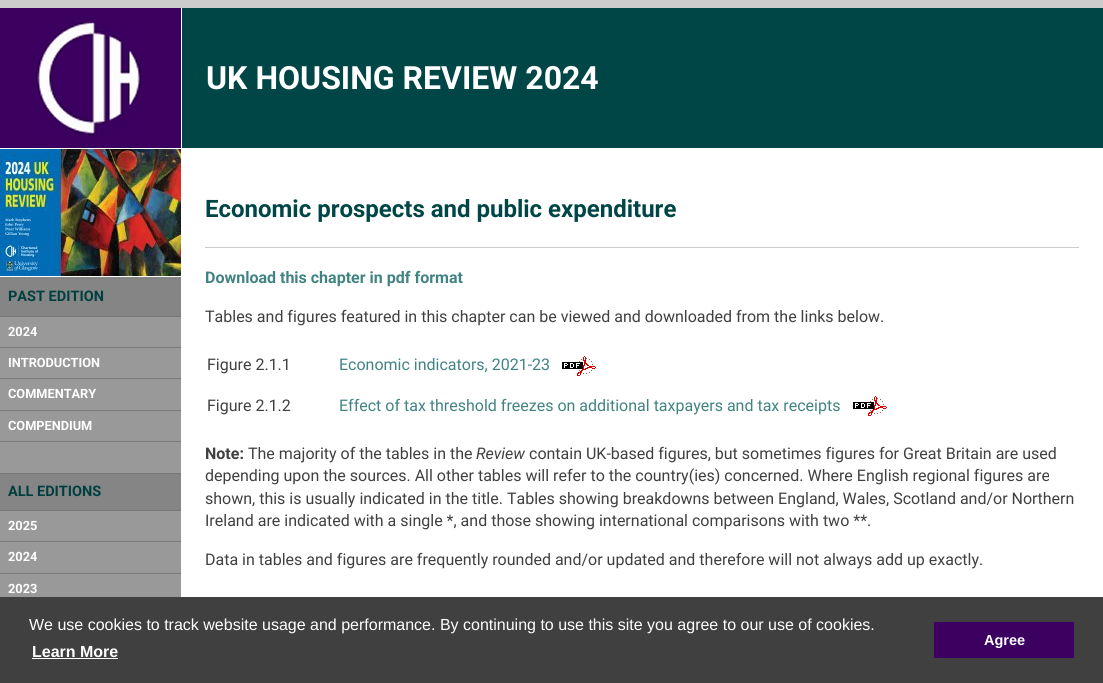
#include <cairo.h>
#include <math.h>
#include <stddef.h>


static void picture(cairo_t *cr, const char *path, double x, double y, double w, double h) {
    cairo_surface_t *image = cairo_image_surface_create_from_png(path);
    cairo_save(cr);
    cairo_set_source_surface(cr, image, x, y);
    cairo_rectangle(cr, x, y, w, h);
    cairo_fill(cr);
    cairo_restore(cr);
    cairo_surface_destroy(image);
}

int main(void) {
    cairo_surface_t *surface = cairo_image_surface_create(CAIRO_FORMAT_RGB24, 1103, 683);
    cairo_t *cr = cairo_create(surface);
    cairo_font_options_t *options = cairo_font_options_create();
    cairo_font_options_set_hint_metrics(options, CAIRO_HINT_METRICS_OFF);
    cairo_font_options_set_hint_style(options, CAIRO_HINT_STYLE_NONE);
    cairo_set_font_options(cr, options);
    cairo_set_miter_limit(cr, 4);
    cairo_set_source_rgb(cr, 0.8, 0.8, 0.8);
    cairo_paint(cr);
    cairo_set_source_rgb(cr, 0, 0.275, 0.275);
    cairo_rectangle(cr, 182, 8, 921, 140);
    cairo_fill(cr);
    cairo_set_source_rgb(cr, 1, 1, 1);
    cairo_rectangle(cr, 0, 148, 1103, 1);
    cairo_fill(cr);
    cairo_set_source_rgb(cr, 0.235, 0, 0.373);
    cairo_rectangle(cr, 0, 8, 181, 140);
    cairo_fill(cr);
    cairo_set_source_rgb(cr, 1, 1, 1);
    cairo_rectangle(cr, 181, 8, 1, 140);
    cairo_fill(cr);
    picture(cr, "img1.png", 36, 22, 105, 113);
    cairo_select_font_face(cr, "Roboto", CAIRO_FONT_SLANT_NORMAL, CAIRO_FONT_WEIGHT_BOLD);
    cairo_set_font_size(cr, 32);
    cairo_move_to(cr, 206, 89);
    cairo_show_text(cr, "UK HOUSING REVIEW 2024");
    cairo_set_source_rgb(cr, 0.522, 0.522, 0.522);
    cairo_rectangle(cr, 0, 277, 181, 233);
    cairo_fill(cr);
    picture(cr, "img2.png", 0, 149, 181, 127);
    cairo_set_source_rgb(cr, 1, 1, 1);
    cairo_rectangle(cr, 0, 276, 181, 1);
    cairo_fill(cr);
    cairo_set_source_rgb(cr, 0.467, 0.467, 0.467);
    cairo_rectangle(cr, 0, 316, 181, 1);
    cairo_fill(cr);
    cairo_set_font_size(cr, 14.5);
    cairo_set_source_rgb(cr, 0, 0.247, 0.247);
    cairo_move_to(cr, 8, 301);
    cairo_show_text(cr, "PAST EDITION");
    cairo_set_source_rgb(cr, 0.478, 0.478, 0.478);
    cairo_rectangle(cr, 0, 347, 181, 1);
    cairo_fill(cr);
    cairo_set_source_rgb(cr, 0.6, 0.6, 0.6);
    cairo_rectangle(cr, 0, 317, 181, 30);
    cairo_fill(cr);
    cairo_set_font_size(cr, 12.75);
    cairo_set_source_rgb(cr, 1, 1, 1);
    cairo_move_to(cr, 8, 336);
    cairo_show_text(cr, "2024");
    cairo_set_source_rgb(cr, 0.478, 0.478, 0.478);
    cairo_rectangle(cr, 0, 378, 181, 1);
    cairo_fill(cr);
    cairo_set_source_rgb(cr, 0.6, 0.6, 0.6);
    cairo_rectangle(cr, 0, 348, 181, 30);
    cairo_fill(cr);
    cairo_set_source_rgb(cr, 1, 1, 1);
    cairo_move_to(cr, 8, 367);
    cairo_show_text(cr, "INTRODUCTION");
    cairo_set_source_rgb(cr, 0.478, 0.478, 0.478);
    cairo_rectangle(cr, 0, 410, 181, 1);
    cairo_fill(cr);
    cairo_set_source_rgb(cr, 0.6, 0.6, 0.6);
    cairo_rectangle(cr, 0, 379, 181, 31);
    cairo_fill(cr);
    cairo_set_source_rgb(cr, 1, 1, 1);
    cairo_move_to(cr, 8, 398);
    cairo_show_text(cr, "COMMENTARY");
    cairo_set_source_rgb(cr, 0.478, 0.478, 0.478);
    cairo_rectangle(cr, 0, 441, 181, 1);
    cairo_fill(cr);
    cairo_set_source_rgb(cr, 0.6, 0.6, 0.6);
    cairo_rectangle(cr, 0, 411, 181, 30);
    cairo_fill(cr);
    cairo_set_source_rgb(cr, 1, 1, 1);
    cairo_move_to(cr, 8, 430);
    cairo_show_text(cr, "COMPENDIUM");
    cairo_set_source_rgb(cr, 0.6, 0.6, 0.6);
    cairo_rectangle(cr, 0, 442, 181, 31);
    cairo_fill(cr);
    cairo_set_source_rgb(cr, 0.467, 0.467, 0.467);
    cairo_rectangle(cr, 0, 473, 181, 1);
    cairo_fill(cr);
    cairo_rectangle(cr, 0, 510, 181, 1);
    cairo_fill(cr);
    cairo_set_font_size(cr, 14.5);
    cairo_set_source_rgb(cr, 0, 0.247, 0.247);
    cairo_move_to(cr, 8, 496);
    cairo_show_text(cr, "ALL EDITIONS");
    cairo_set_source_rgb(cr, 0.478, 0.478, 0.478);
    cairo_rectangle(cr, 0, 541, 181, 1);
    cairo_fill(cr);
    cairo_set_source_rgb(cr, 0.6, 0.6, 0.6);
    cairo_rectangle(cr, 0, 511, 181, 30);
    cairo_fill(cr);
    cairo_set_font_size(cr, 12.75);
    cairo_set_source_rgb(cr, 1, 1, 1);
    cairo_move_to(cr, 8, 530);
    cairo_show_text(cr, "2025");
    cairo_set_source_rgb(cr, 0.478, 0.478, 0.478);
    cairo_rectangle(cr, 0, 573, 181, 1);
    cairo_fill(cr);
    cairo_set_source_rgb(cr, 0.6, 0.6, 0.6);
    cairo_rectangle(cr, 0, 542, 181, 31);
    cairo_fill(cr);
    cairo_set_source_rgb(cr, 1, 1, 1);
    cairo_move_to(cr, 8, 561);
    cairo_show_text(cr, "2024");
    cairo_set_source_rgb(cr, 0.6, 0.6, 0.6);
    cairo_rectangle(cr, 0, 574, 181, 23);
    cairo_fill(cr);
    cairo_set_source_rgb(cr, 1, 1, 1);
    cairo_move_to(cr, 8, 593);
    cairo_show_text(cr, "2023");
    cairo_rectangle(cr, 181, 149, 922, 448);
    cairo_fill(cr);
    cairo_set_source_rgb(cr, 0.8, 0.8, 0.8);
    cairo_rectangle(cr, 205, 247, 874, 1);
    cairo_fill(cr);
    cairo_set_font_size(cr, 24);
    cairo_set_source_rgb(cr, 0, 0.275, 0.275);
    cairo_move_to(cr, 205, 217);
    cairo_show_text(cr, "Economic prospects and public expenditure");
    cairo_set_font_size(cr, 16);
    cairo_set_source_rgb(cr, 0.255, 0.514, 0.514);
    cairo_move_to(cr, 205, 283);
    cairo_show_text(cr, "Download this chapter in pdf format");
    cairo_select_font_face(cr, "Roboto", CAIRO_FONT_SLANT_NORMAL, CAIRO_FONT_WEIGHT_NORMAL);
    cairo_set_source_rgb(cr, 0.251, 0.251, 0.251);
    cairo_move_to(cr, 205, 322);
    cairo_show_text(cr, "Tables and figures featured in this chapter can be viewed and downloaded from the links below.");
    cairo_move_to(cr, 207, 370);
    cairo_show_text(cr, "Figure 2.1.1");
    cairo_set_source_rgb(cr, 0.255, 0.514, 0.514);
    cairo_move_to(cr, 339, 370);
    cairo_show_text(cr, "Economic indicators, 2021-23");
    picture(cr, "img3.png", 562, 356, 34, 20);
    cairo_set_source_rgb(cr, 0.251, 0.251, 0.251);
    cairo_move_to(cr, 207, 411);
    cairo_show_text(cr, "Figure 2.1.2");
    cairo_set_source_rgb(cr, 0.255, 0.514, 0.514);
    cairo_move_to(cr, 339, 411);
    cairo_show_text(cr, "Effect of tax threshold freezes on additional taxpayers and tax receipts");
    picture(cr, "img3.png", 853, 396, 34, 20);
    cairo_select_font_face(cr, "Roboto", CAIRO_FONT_SLANT_NORMAL, CAIRO_FONT_WEIGHT_BOLD);
    cairo_set_source_rgb(cr, 0.251, 0.251, 0.251);
    cairo_move_to(cr, 205, 459);
    cairo_show_text(cr, "Note:");
    cairo_select_font_face(cr, "Roboto", CAIRO_FONT_SLANT_NORMAL, CAIRO_FONT_WEIGHT_NORMAL);
    cairo_move_to(cr, 248, 459);
    cairo_show_text(cr, "The majority of the tables in the");
    cairo_select_font_face(cr, "Roboto", CAIRO_FONT_SLANT_ITALIC, CAIRO_FONT_WEIGHT_NORMAL);
    cairo_move_to(cr, 476, 459);
    cairo_show_text(cr, "Review");
    cairo_select_font_face(cr, "Roboto", CAIRO_FONT_SLANT_NORMAL, CAIRO_FONT_WEIGHT_NORMAL);
    cairo_move_to(cr, 529, 459);
    cairo_show_text(cr, "contain UK-based figures, but sometimes figures for Great Britain are used");
    cairo_move_to(cr, 205, 481);
    cairo_show_text(cr, "depending upon the sources. All other tables will refer to the country(ies) concerned. Where English regional figures are");
    cairo_move_to(cr, 205, 504);
    cairo_show_text(cr, "shown, this is usually indicated in the title. Tables showing breakdowns between England, Wales, Scotland and/or Northern");
    cairo_move_to(cr, 205, 526);
    cairo_show_text(cr, "Ireland are indicated with a single *, and those showing international comparisons with two **.");
    cairo_move_to(cr, 205, 565);
    cairo_show_text(cr, "Data in tables and figures are frequently rounded and/or updated and therefore will not always add up exactly.");
    cairo_rectangle(cr, 0, 597, 1103, 86);
    cairo_fill(cr);
    cairo_select_font_face(cr, "Liberation Sans", CAIRO_FONT_SLANT_NORMAL, CAIRO_FONT_WEIGHT_NORMAL);
    cairo_set_source_rgb(cr, 1, 1, 1);
    cairo_move_to(cr, 29, 630);
    cairo_show_text(cr, "We use cookies to track website usage and performance. By continuing to use this site you agree to our use of cookies.");
    cairo_select_font_face(cr, "Liberation Sans", CAIRO_FONT_SLANT_NORMAL, CAIRO_FONT_WEIGHT_BOLD);
    cairo_move_to(cr, 32, 657);
    cairo_show_text(cr, "Learn More");
    cairo_rectangle(cr, 32, 658, 86, 1);
    cairo_fill(cr);
    cairo_set_source_rgb(cr, 0.235, 0, 0.376);
    cairo_rectangle(cr, 934, 622, 140, 36);
    cairo_fill(cr);
    cairo_set_font_size(cr, 14.5);
    cairo_set_source_rgb(cr, 1, 1, 1);
    cairo_move_to(cr, 984, 645);
    cairo_show_text(cr, "Agree");
    cairo_surface_write_to_png(surface, "page.png");
    cairo_font_options_destroy(options);
    cairo_destroy(cr);
    cairo_surface_destroy(surface);
    return 0;
}
